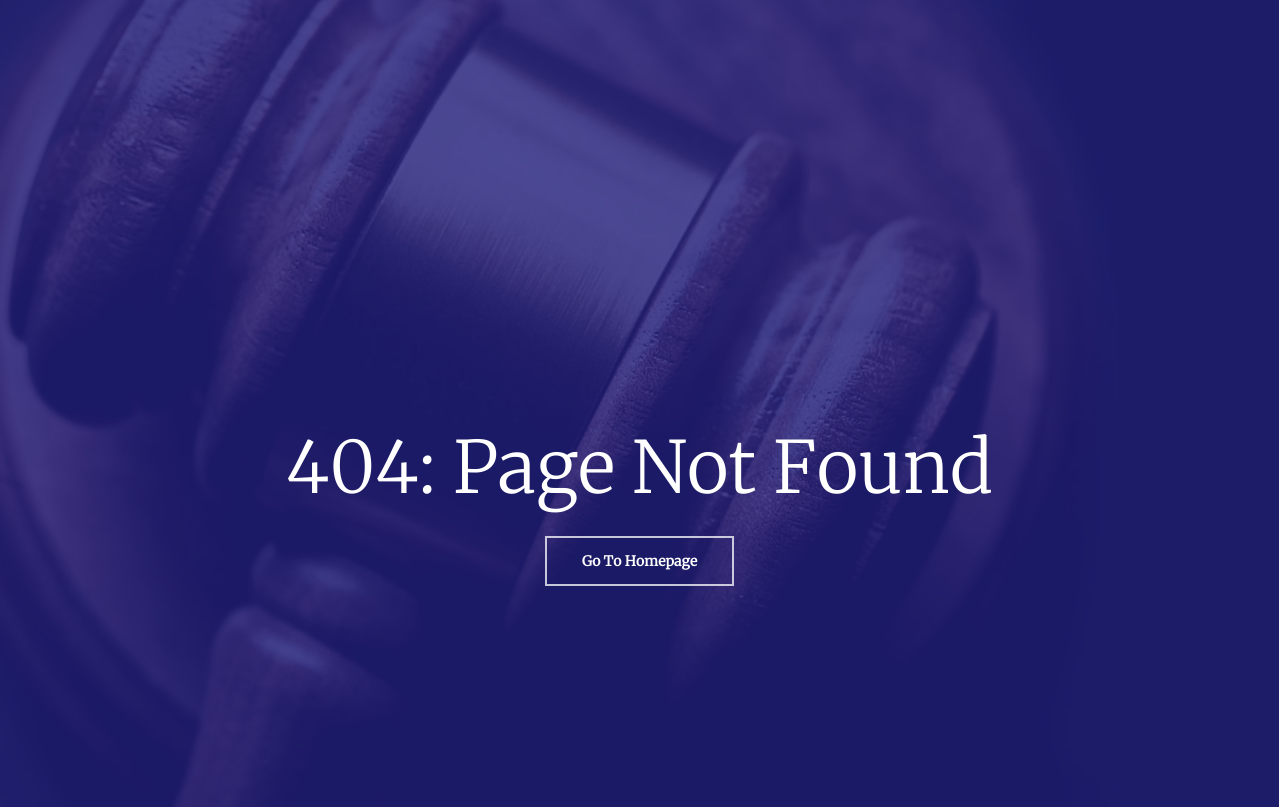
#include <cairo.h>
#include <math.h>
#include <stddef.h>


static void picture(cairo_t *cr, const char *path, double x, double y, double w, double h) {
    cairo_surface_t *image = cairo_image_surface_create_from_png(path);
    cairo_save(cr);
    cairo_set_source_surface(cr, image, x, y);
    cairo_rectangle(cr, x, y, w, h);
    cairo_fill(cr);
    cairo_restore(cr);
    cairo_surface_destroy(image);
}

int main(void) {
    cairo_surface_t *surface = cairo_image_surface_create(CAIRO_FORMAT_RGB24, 1279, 807);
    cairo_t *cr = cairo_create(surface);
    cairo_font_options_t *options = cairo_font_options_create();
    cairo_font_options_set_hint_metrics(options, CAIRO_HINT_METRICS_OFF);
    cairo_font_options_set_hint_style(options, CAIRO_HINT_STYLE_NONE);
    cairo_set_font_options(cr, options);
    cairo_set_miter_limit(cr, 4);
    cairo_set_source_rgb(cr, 1, 1, 1);
    cairo_paint(cr);
    picture(cr, "img1.png", 0, 0, 1279, 807);
    cairo_select_font_face(cr, "Merriweather Light", CAIRO_FONT_SLANT_NORMAL, CAIRO_FONT_WEIGHT_NORMAL);
    cairo_set_font_size(cr, 72);
    cairo_set_source_rgb(cr, 1, 1, 1);
    cairo_move_to(cr, 286, 493);
    cairo_show_text(cr, "404: Page Not Found");
    cairo_rectangle(cr, 546, 537, 187, 48);
    cairo_set_source_rgba(cr, 1, 1, 1, 0.75);
    cairo_stroke(cr);
    cairo_select_font_face(cr, "Merriweather", CAIRO_FONT_SLANT_NORMAL, CAIRO_FONT_WEIGHT_BOLD);
    cairo_set_font_size(cr, 14);
    cairo_set_source_rgb(cr, 1, 1, 1);
    cairo_move_to(cr, 582, 566);
    cairo_show_text(cr, "Go To Homepage");
    cairo_surface_write_to_png(surface, "page.png");
    cairo_font_options_destroy(options);
    cairo_destroy(cr);
    cairo_surface_destroy(surface);
    return 0;
}
